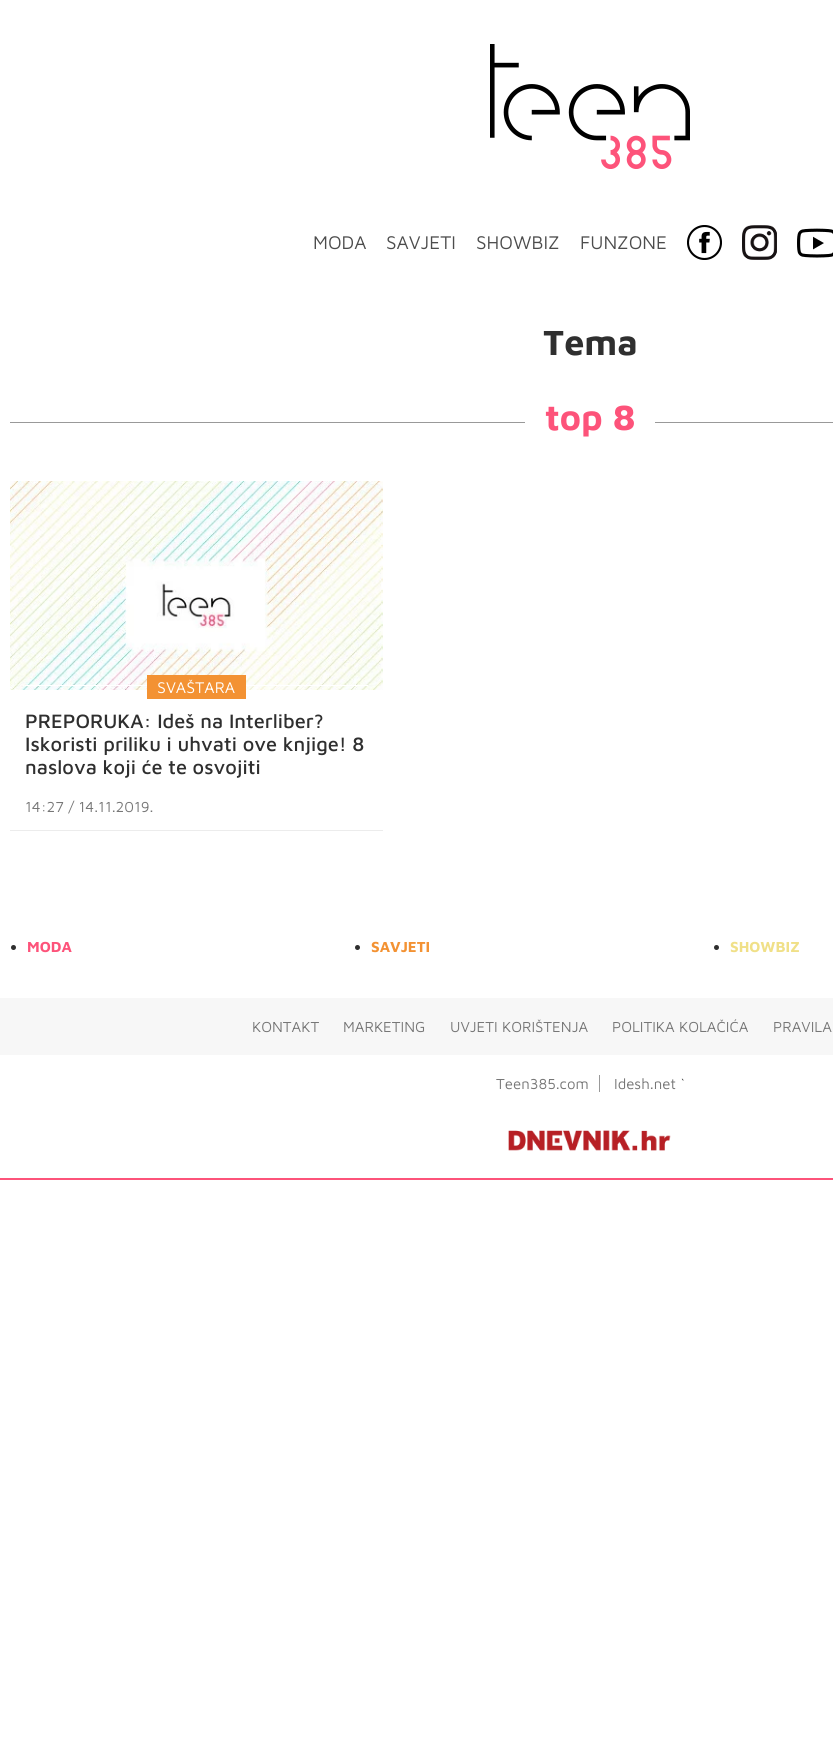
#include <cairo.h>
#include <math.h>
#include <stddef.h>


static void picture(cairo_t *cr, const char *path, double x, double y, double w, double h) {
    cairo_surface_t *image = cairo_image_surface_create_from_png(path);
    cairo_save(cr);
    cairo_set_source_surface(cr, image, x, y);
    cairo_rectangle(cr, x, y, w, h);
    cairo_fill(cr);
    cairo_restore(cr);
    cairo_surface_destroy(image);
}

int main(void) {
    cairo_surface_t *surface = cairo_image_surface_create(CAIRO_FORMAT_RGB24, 833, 1743);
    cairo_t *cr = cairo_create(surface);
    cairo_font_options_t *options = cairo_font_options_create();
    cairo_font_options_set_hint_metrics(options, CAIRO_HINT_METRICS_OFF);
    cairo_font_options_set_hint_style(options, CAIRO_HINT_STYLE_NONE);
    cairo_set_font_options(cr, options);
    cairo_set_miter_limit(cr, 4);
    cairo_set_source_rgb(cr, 1, 1, 1);
    cairo_paint(cr);
    picture(cr, "img1.png", 490, 44, 200, 125);
    cairo_select_font_face(cr, "Maven Pro", CAIRO_FONT_SLANT_NORMAL, CAIRO_FONT_WEIGHT_NORMAL);
    cairo_set_font_size(cr, 19);
    cairo_set_source_rgb(cr, 0.298, 0.298, 0.298);
    cairo_move_to(cr, 313, 249);
    cairo_show_text(cr, "MODA");
    cairo_move_to(cr, 386, 249);
    cairo_show_text(cr, "SAVJETI");
    cairo_move_to(cr, 476, 249);
    cairo_show_text(cr, "SHOWBIZ");
    cairo_move_to(cr, 580, 249);
    cairo_show_text(cr, "FUNZONE");
    picture(cr, "img2.png", 687, 225, 35, 35);
    picture(cr, "img3.png", 742, 225, 35, 35);
    picture(cr, "img4.png", 797, 228, 36, 30);
    cairo_select_font_face(cr, "Maven Pro", CAIRO_FONT_SLANT_NORMAL, CAIRO_FONT_WEIGHT_BOLD);
    cairo_set_font_size(cr, 36);
    cairo_set_source_rgb(cr, 0.184, 0.184, 0.184);
    cairo_move_to(cr, 543, 355);
    cairo_show_text(cr, "Tema");
    cairo_set_source_rgb(cr, 0.6, 0.6, 0.6);
    cairo_rectangle(cr, 10, 422, 823, 1);
    cairo_fill(cr);
    cairo_set_source_rgb(cr, 1, 1, 1);
    cairo_rectangle(cr, 525, 422, 130, 1);
    cairo_fill(cr);
    cairo_set_source_rgb(cr, 0.992, 0.325, 0.478);
    cairo_move_to(cr, 545, 430);
    cairo_show_text(cr, "top 8");
    picture(cr, "img5.png", 10, 481, 373, 209);
    cairo_set_source_rgb(cr, 1, 1, 1);
    cairo_rectangle(cr, 25, 685, 343, 1);
    cairo_fill(cr);
    cairo_set_source_rgb(cr, 0.953, 0.573, 0.2);
    cairo_rectangle(cr, 147, 675, 99, 24);
    cairo_fill(cr);
    cairo_select_font_face(cr, "Maven Pro", CAIRO_FONT_SLANT_NORMAL, CAIRO_FONT_WEIGHT_NORMAL);
    cairo_set_font_size(cr, 16);
    cairo_set_source_rgb(cr, 1, 1, 1);
    cairo_move_to(cr, 157, 693);
    cairo_show_text(cr, "SVAŠTARA");
    cairo_set_source_rgb(cr, 0.922, 0.922, 0.922);
    cairo_rectangle(cr, 10, 830, 373, 1);
    cairo_fill(cr);
    cairo_select_font_face(cr, "Maven Pro Medium", CAIRO_FONT_SLANT_NORMAL, CAIRO_FONT_WEIGHT_NORMAL);
    cairo_set_font_size(cr, 20);
    cairo_set_source_rgb(cr, 0.184, 0.184, 0.184);
    cairo_move_to(cr, 25, 728);
    cairo_show_text(cr, "PREPORUKA: Ideš na Interliber?");
    cairo_move_to(cr, 25, 751);
    cairo_show_text(cr, "Iskoristi priliku i uhvati ove knjige! 8");
    cairo_move_to(cr, 25, 774);
    cairo_show_text(cr, "naslova koji će te osvojiti");
    cairo_select_font_face(cr, "Maven Pro", CAIRO_FONT_SLANT_NORMAL, CAIRO_FONT_WEIGHT_NORMAL);
    cairo_set_font_size(cr, 15);
    cairo_set_source_rgb(cr, 0.467, 0.467, 0.467);
    cairo_move_to(cr, 25, 812);
    cairo_show_text(cr, "14:27 / 14.11.2019.");
    cairo_set_source_rgb(cr, 0.992, 0.325, 0.478);
    cairo_rectangle(cr, 0, 1178, 833, 2);
    cairo_fill(cr);
    cairo_set_source_rgb(cr, 0.184, 0.184, 0.184);
    cairo_arc(cr, 13.5, 947.5, 2.5, 0, 2 * M_PI);
    cairo_fill(cr);
    cairo_select_font_face(cr, "Maven Pro", CAIRO_FONT_SLANT_NORMAL, CAIRO_FONT_WEIGHT_BOLD);
    cairo_set_source_rgb(cr, 0.992, 0.325, 0.478);
    cairo_move_to(cr, 27, 952);
    cairo_show_text(cr, "MODA");
    cairo_set_source_rgb(cr, 0.184, 0.184, 0.184);
    cairo_new_path(cr);
    cairo_arc(cr, 357.5, 947.5, 2.5, 0, 2 * M_PI);
    cairo_fill(cr);
    cairo_set_source_rgb(cr, 0.953, 0.573, 0.2);
    cairo_move_to(cr, 371, 952);
    cairo_show_text(cr, "SAVJETI");
    cairo_set_source_rgb(cr, 0.184, 0.184, 0.184);
    cairo_new_path(cr);
    cairo_arc(cr, 716.5, 947.5, 2.5, 0, 2 * M_PI);
    cairo_fill(cr);
    cairo_set_source_rgb(cr, 0.941, 0.878, 0.533);
    cairo_move_to(cr, 730, 952);
    cairo_show_text(cr, "SHOWBIZ");
    cairo_set_source_rgb(cr, 0.965, 0.965, 0.965);
    cairo_rectangle(cr, 0, 998, 833, 57);
    cairo_fill(cr);
    cairo_select_font_face(cr, "Maven Pro", CAIRO_FONT_SLANT_NORMAL, CAIRO_FONT_WEIGHT_NORMAL);
    cairo_set_source_rgb(cr, 0.467, 0.467, 0.467);
    cairo_move_to(cr, 252, 1032);
    cairo_show_text(cr, "KONTAKT");
    cairo_move_to(cr, 343, 1032);
    cairo_show_text(cr, "MARKETING");
    cairo_move_to(cr, 450, 1032);
    cairo_show_text(cr, "UVJETI KORIŠTENJA");
    cairo_move_to(cr, 612, 1032);
    cairo_show_text(cr, "POLITIKA KOLAČIĆA");
    cairo_move_to(cr, 773, 1032);
    cairo_show_text(cr, "PRAVILA");
    cairo_move_to(cr, 496, 1089);
    cairo_show_text(cr, "Teen385.com");
    cairo_set_source_rgb(cr, 0.6, 0.6, 0.6);
    cairo_rectangle(cr, 599, 1075, 1, 17);
    cairo_fill(cr);
    cairo_set_source_rgb(cr, 0.467, 0.467, 0.467);
    cairo_move_to(cr, 614, 1089);
    cairo_show_text(cr, "Idesh.net");
    cairo_set_source_rgb(cr, 0.184, 0.184, 0.184);
    cairo_move_to(cr, 681, 1089);
    cairo_show_text(cr, "`");
    picture(cr, "img6.png", 508, 1130, 163, 21);
    cairo_surface_write_to_png(surface, "page.png");
    cairo_font_options_destroy(options);
    cairo_destroy(cr);
    cairo_surface_destroy(surface);
    return 0;
}
